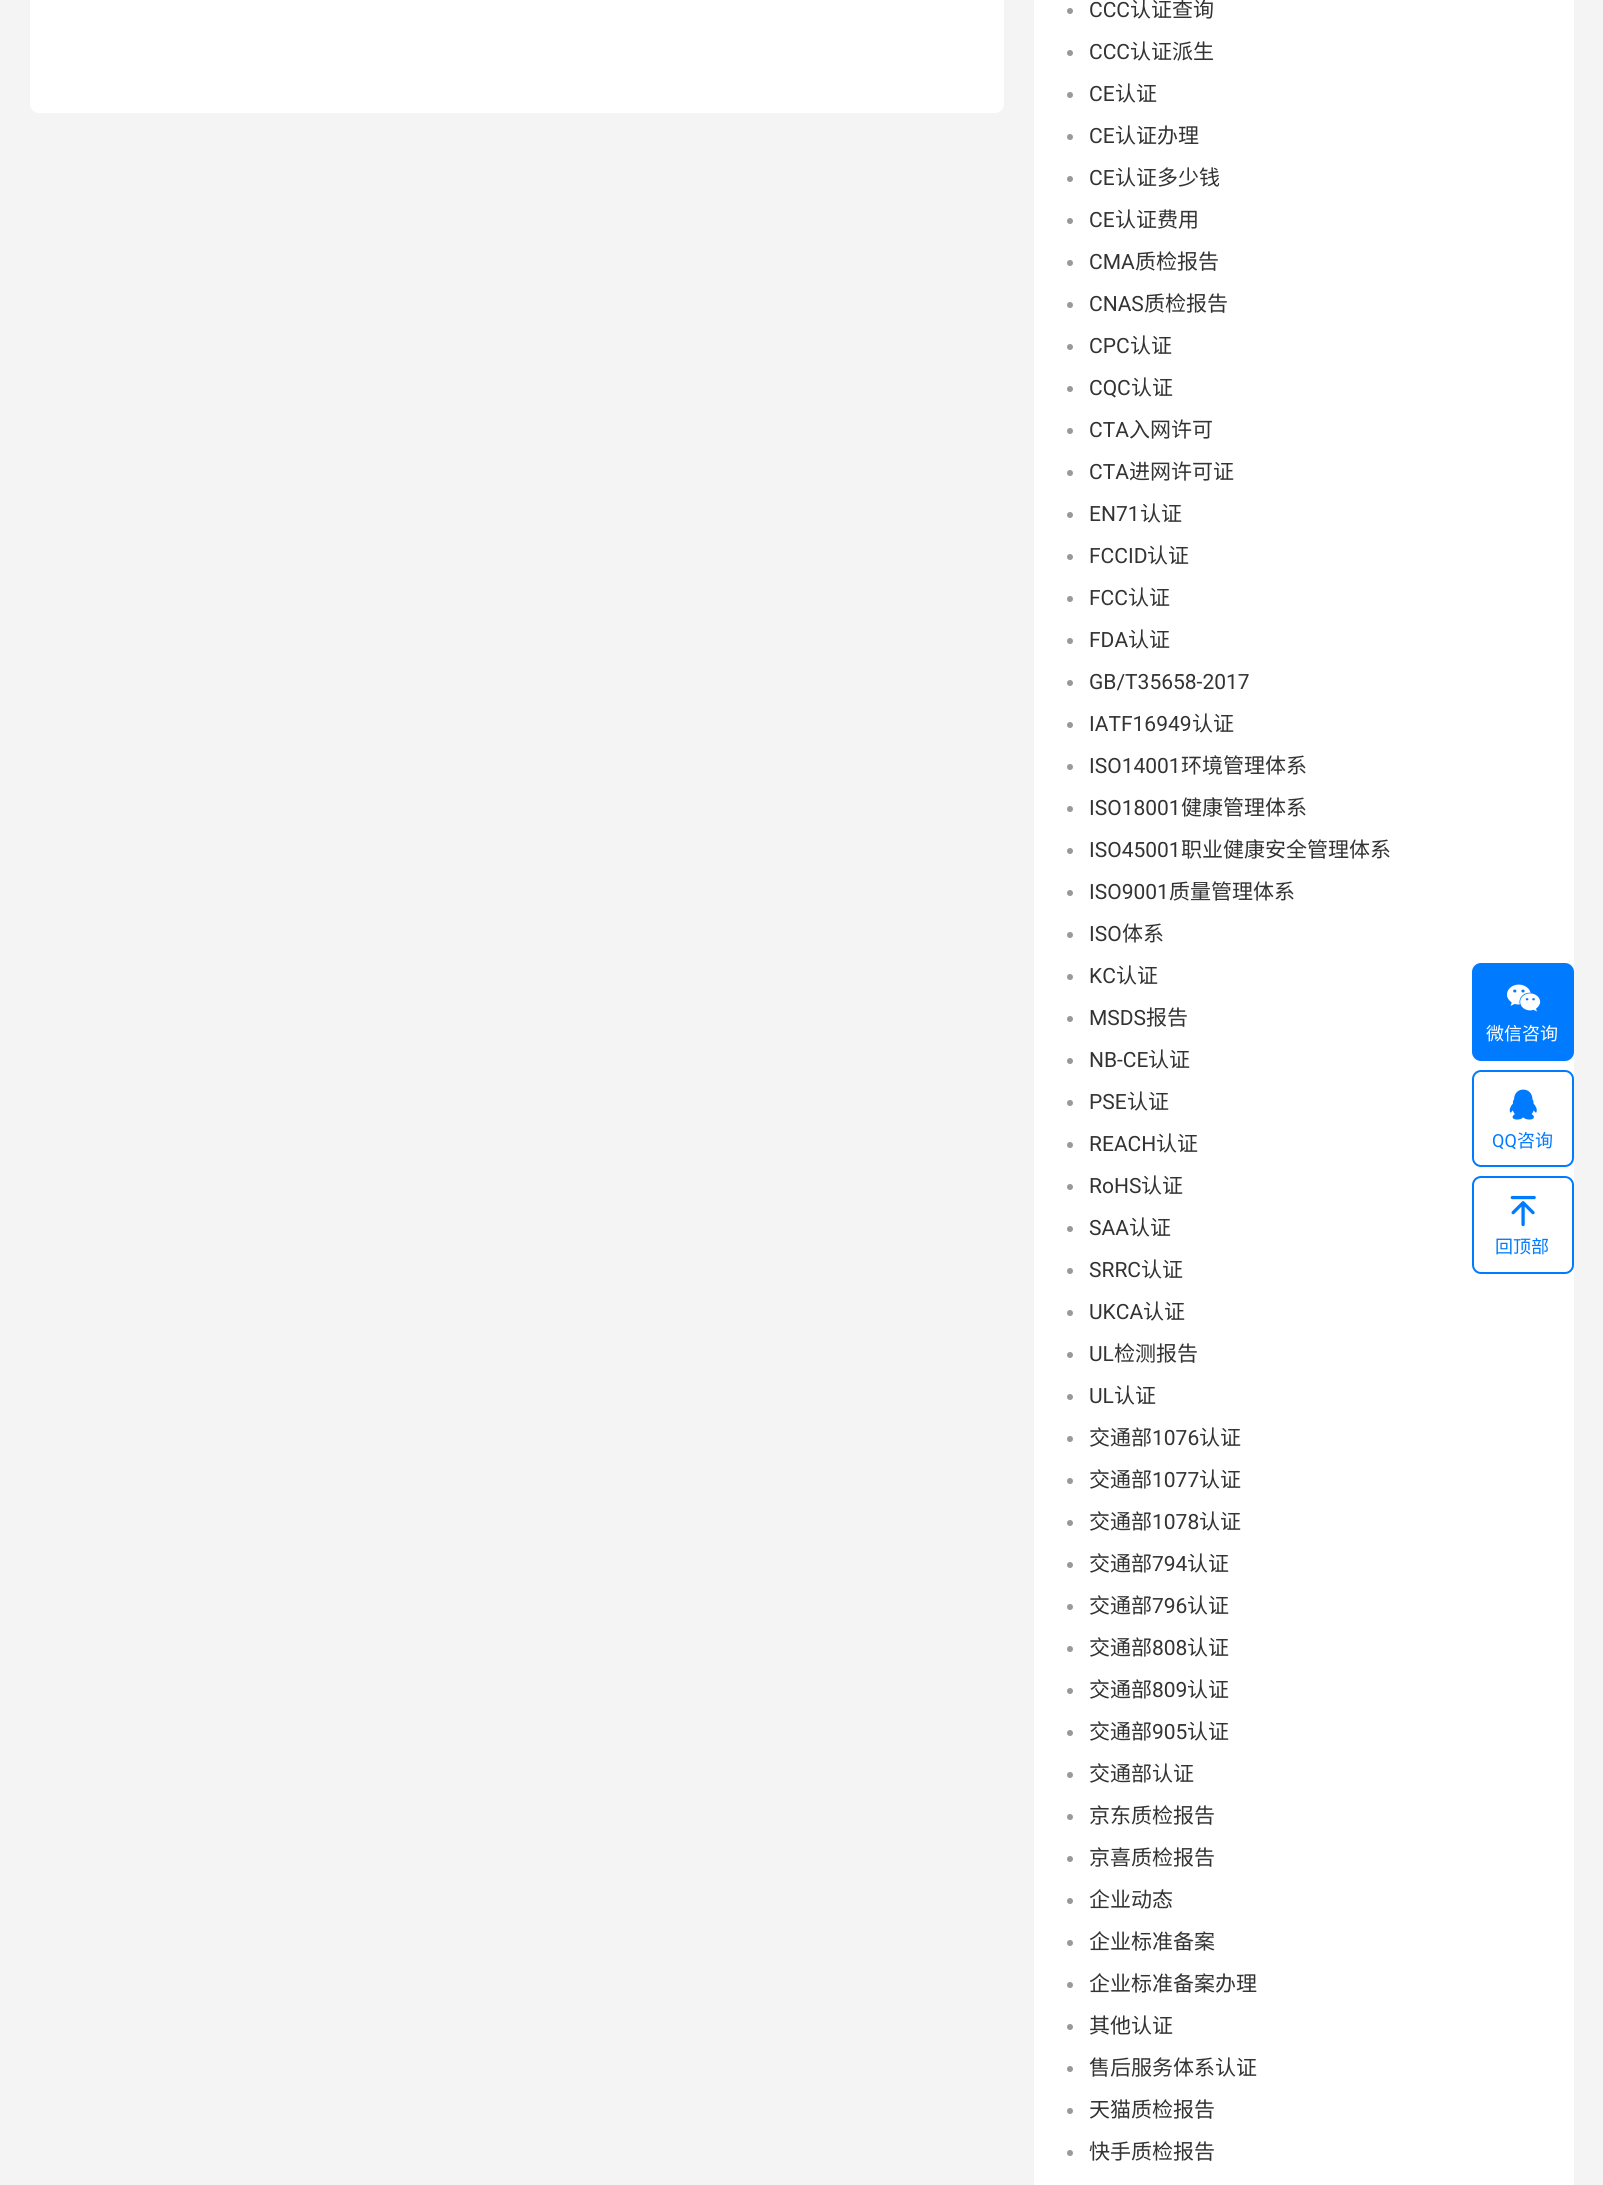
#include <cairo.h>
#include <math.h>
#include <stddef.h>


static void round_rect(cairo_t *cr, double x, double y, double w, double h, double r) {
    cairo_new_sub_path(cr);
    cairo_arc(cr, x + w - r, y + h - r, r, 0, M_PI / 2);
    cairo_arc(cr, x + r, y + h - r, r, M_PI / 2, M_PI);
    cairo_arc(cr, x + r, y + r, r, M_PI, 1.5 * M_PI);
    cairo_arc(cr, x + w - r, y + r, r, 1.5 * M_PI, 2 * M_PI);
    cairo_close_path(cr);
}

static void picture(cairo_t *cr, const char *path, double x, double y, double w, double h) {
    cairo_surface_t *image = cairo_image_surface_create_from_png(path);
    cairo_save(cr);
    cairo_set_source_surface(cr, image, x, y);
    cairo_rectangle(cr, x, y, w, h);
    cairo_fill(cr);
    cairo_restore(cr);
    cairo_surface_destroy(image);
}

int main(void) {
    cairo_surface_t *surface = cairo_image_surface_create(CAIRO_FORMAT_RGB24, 1603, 2185);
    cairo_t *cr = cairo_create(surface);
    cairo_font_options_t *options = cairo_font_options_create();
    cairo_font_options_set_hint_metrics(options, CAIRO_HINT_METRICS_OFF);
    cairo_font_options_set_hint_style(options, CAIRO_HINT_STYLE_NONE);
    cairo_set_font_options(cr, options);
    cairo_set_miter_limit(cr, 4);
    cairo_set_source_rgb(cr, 0.957, 0.957, 0.957);
    cairo_paint(cr);
    cairo_set_source_rgb(cr, 1, 1, 1);
    round_rect(cr, 30, -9, 974, 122, 9);
    cairo_fill(cr);
    cairo_rectangle(cr, 1034, 0, 540, 2185);
    cairo_fill(cr);
    cairo_set_source_rgb(cr, 0.6, 0.6, 0.6);
    cairo_arc(cr, 1070, 11, 3, 0, 2 * M_PI);
    cairo_fill(cr);
    cairo_select_font_face(cr, "Roboto", CAIRO_FONT_SLANT_NORMAL, CAIRO_FONT_WEIGHT_NORMAL);
    cairo_set_font_size(cr, 21);
    cairo_set_source_rgb(cr, 0.2, 0.2, 0.2);
    cairo_move_to(cr, 1089, 17);
    cairo_show_text(cr, "CCC");
    cairo_select_font_face(cr, "Noto Sans CJK SC", CAIRO_FONT_SLANT_NORMAL, CAIRO_FONT_WEIGHT_NORMAL);
    cairo_move_to(cr, 1130, 17);
    cairo_show_text(cr, "认证查询");
    cairo_set_source_rgb(cr, 0.6, 0.6, 0.6);
    cairo_new_path(cr);
    cairo_arc(cr, 1070, 53, 3, 0, 2 * M_PI);
    cairo_fill(cr);
    cairo_select_font_face(cr, "Roboto", CAIRO_FONT_SLANT_NORMAL, CAIRO_FONT_WEIGHT_NORMAL);
    cairo_set_source_rgb(cr, 0.2, 0.2, 0.2);
    cairo_move_to(cr, 1089, 59);
    cairo_show_text(cr, "CCC");
    cairo_select_font_face(cr, "Noto Sans CJK SC", CAIRO_FONT_SLANT_NORMAL, CAIRO_FONT_WEIGHT_NORMAL);
    cairo_move_to(cr, 1130, 59);
    cairo_show_text(cr, "认证派生");
    cairo_set_source_rgb(cr, 0.6, 0.6, 0.6);
    cairo_new_path(cr);
    cairo_arc(cr, 1070, 95, 3, 0, 2 * M_PI);
    cairo_fill(cr);
    cairo_select_font_face(cr, "Roboto", CAIRO_FONT_SLANT_NORMAL, CAIRO_FONT_WEIGHT_NORMAL);
    cairo_set_source_rgb(cr, 0.2, 0.2, 0.2);
    cairo_move_to(cr, 1089, 101);
    cairo_show_text(cr, "CE");
    cairo_select_font_face(cr, "Noto Sans CJK SC", CAIRO_FONT_SLANT_NORMAL, CAIRO_FONT_WEIGHT_NORMAL);
    cairo_move_to(cr, 1115, 101);
    cairo_show_text(cr, "认证");
    cairo_set_source_rgb(cr, 0.6, 0.6, 0.6);
    cairo_new_path(cr);
    cairo_arc(cr, 1070, 137, 3, 0, 2 * M_PI);
    cairo_fill(cr);
    cairo_select_font_face(cr, "Roboto", CAIRO_FONT_SLANT_NORMAL, CAIRO_FONT_WEIGHT_NORMAL);
    cairo_set_source_rgb(cr, 0.2, 0.2, 0.2);
    cairo_move_to(cr, 1089, 143);
    cairo_show_text(cr, "CE");
    cairo_select_font_face(cr, "Noto Sans CJK SC", CAIRO_FONT_SLANT_NORMAL, CAIRO_FONT_WEIGHT_NORMAL);
    cairo_move_to(cr, 1115, 143);
    cairo_show_text(cr, "认证办理");
    cairo_set_source_rgb(cr, 0.6, 0.6, 0.6);
    cairo_new_path(cr);
    cairo_arc(cr, 1070, 179, 3, 0, 2 * M_PI);
    cairo_fill(cr);
    cairo_select_font_face(cr, "Roboto", CAIRO_FONT_SLANT_NORMAL, CAIRO_FONT_WEIGHT_NORMAL);
    cairo_set_source_rgb(cr, 0.2, 0.2, 0.2);
    cairo_move_to(cr, 1089, 185);
    cairo_show_text(cr, "CE");
    cairo_select_font_face(cr, "Noto Sans CJK SC", CAIRO_FONT_SLANT_NORMAL, CAIRO_FONT_WEIGHT_NORMAL);
    cairo_move_to(cr, 1115, 185);
    cairo_show_text(cr, "认证多少钱");
    cairo_set_source_rgb(cr, 0.6, 0.6, 0.6);
    cairo_new_path(cr);
    cairo_arc(cr, 1070, 221, 3, 0, 2 * M_PI);
    cairo_fill(cr);
    cairo_select_font_face(cr, "Roboto", CAIRO_FONT_SLANT_NORMAL, CAIRO_FONT_WEIGHT_NORMAL);
    cairo_set_source_rgb(cr, 0.2, 0.2, 0.2);
    cairo_move_to(cr, 1089, 227);
    cairo_show_text(cr, "CE");
    cairo_select_font_face(cr, "Noto Sans CJK SC", CAIRO_FONT_SLANT_NORMAL, CAIRO_FONT_WEIGHT_NORMAL);
    cairo_move_to(cr, 1115, 227);
    cairo_show_text(cr, "认证费用");
    cairo_set_source_rgb(cr, 0.6, 0.6, 0.6);
    cairo_new_path(cr);
    cairo_arc(cr, 1070, 263, 3, 0, 2 * M_PI);
    cairo_fill(cr);
    cairo_select_font_face(cr, "Roboto", CAIRO_FONT_SLANT_NORMAL, CAIRO_FONT_WEIGHT_NORMAL);
    cairo_set_source_rgb(cr, 0.2, 0.2, 0.2);
    cairo_move_to(cr, 1089, 269);
    cairo_show_text(cr, "CMA");
    cairo_select_font_face(cr, "Noto Sans CJK SC", CAIRO_FONT_SLANT_NORMAL, CAIRO_FONT_WEIGHT_NORMAL);
    cairo_move_to(cr, 1135, 269);
    cairo_show_text(cr, "质检报告");
    cairo_set_source_rgb(cr, 0.6, 0.6, 0.6);
    cairo_new_path(cr);
    cairo_arc(cr, 1070, 305, 3, 0, 2 * M_PI);
    cairo_fill(cr);
    cairo_select_font_face(cr, "Roboto", CAIRO_FONT_SLANT_NORMAL, CAIRO_FONT_WEIGHT_NORMAL);
    cairo_set_source_rgb(cr, 0.2, 0.2, 0.2);
    cairo_move_to(cr, 1089, 311);
    cairo_show_text(cr, "CNAS");
    cairo_select_font_face(cr, "Noto Sans CJK SC", CAIRO_FONT_SLANT_NORMAL, CAIRO_FONT_WEIGHT_NORMAL);
    cairo_move_to(cr, 1144, 311);
    cairo_show_text(cr, "质检报告");
    cairo_set_source_rgb(cr, 0.6, 0.6, 0.6);
    cairo_new_path(cr);
    cairo_arc(cr, 1070, 347, 3, 0, 2 * M_PI);
    cairo_fill(cr);
    cairo_select_font_face(cr, "Roboto", CAIRO_FONT_SLANT_NORMAL, CAIRO_FONT_WEIGHT_NORMAL);
    cairo_set_source_rgb(cr, 0.2, 0.2, 0.2);
    cairo_move_to(cr, 1089, 353);
    cairo_show_text(cr, "CPC");
    cairo_select_font_face(cr, "Noto Sans CJK SC", CAIRO_FONT_SLANT_NORMAL, CAIRO_FONT_WEIGHT_NORMAL);
    cairo_move_to(cr, 1130, 353);
    cairo_show_text(cr, "认证");
    cairo_set_source_rgb(cr, 0.6, 0.6, 0.6);
    cairo_new_path(cr);
    cairo_arc(cr, 1070, 389, 3, 0, 2 * M_PI);
    cairo_fill(cr);
    cairo_select_font_face(cr, "Roboto", CAIRO_FONT_SLANT_NORMAL, CAIRO_FONT_WEIGHT_NORMAL);
    cairo_set_source_rgb(cr, 0.2, 0.2, 0.2);
    cairo_move_to(cr, 1089, 395);
    cairo_show_text(cr, "CQC");
    cairo_select_font_face(cr, "Noto Sans CJK SC", CAIRO_FONT_SLANT_NORMAL, CAIRO_FONT_WEIGHT_NORMAL);
    cairo_move_to(cr, 1131, 395);
    cairo_show_text(cr, "认证");
    cairo_set_source_rgb(cr, 0.6, 0.6, 0.6);
    cairo_new_path(cr);
    cairo_arc(cr, 1070, 431, 3, 0, 2 * M_PI);
    cairo_fill(cr);
    cairo_select_font_face(cr, "Roboto", CAIRO_FONT_SLANT_NORMAL, CAIRO_FONT_WEIGHT_NORMAL);
    cairo_set_source_rgb(cr, 0.2, 0.2, 0.2);
    cairo_move_to(cr, 1089, 437);
    cairo_show_text(cr, "CTA");
    cairo_select_font_face(cr, "Noto Sans CJK SC", CAIRO_FONT_SLANT_NORMAL, CAIRO_FONT_WEIGHT_NORMAL);
    cairo_move_to(cr, 1129, 437);
    cairo_show_text(cr, "入网许可");
    cairo_set_source_rgb(cr, 0.6, 0.6, 0.6);
    cairo_new_path(cr);
    cairo_arc(cr, 1070, 473, 3, 0, 2 * M_PI);
    cairo_fill(cr);
    cairo_select_font_face(cr, "Roboto", CAIRO_FONT_SLANT_NORMAL, CAIRO_FONT_WEIGHT_NORMAL);
    cairo_set_source_rgb(cr, 0.2, 0.2, 0.2);
    cairo_move_to(cr, 1089, 479);
    cairo_show_text(cr, "CTA");
    cairo_select_font_face(cr, "Noto Sans CJK SC", CAIRO_FONT_SLANT_NORMAL, CAIRO_FONT_WEIGHT_NORMAL);
    cairo_move_to(cr, 1129, 479);
    cairo_show_text(cr, "进网许可证");
    cairo_set_source_rgb(cr, 0.6, 0.6, 0.6);
    cairo_new_path(cr);
    cairo_arc(cr, 1070, 515, 3, 0, 2 * M_PI);
    cairo_fill(cr);
    cairo_select_font_face(cr, "Roboto", CAIRO_FONT_SLANT_NORMAL, CAIRO_FONT_WEIGHT_NORMAL);
    cairo_set_source_rgb(cr, 0.2, 0.2, 0.2);
    cairo_move_to(cr, 1089, 521);
    cairo_show_text(cr, "EN71");
    cairo_select_font_face(cr, "Noto Sans CJK SC", CAIRO_FONT_SLANT_NORMAL, CAIRO_FONT_WEIGHT_NORMAL);
    cairo_move_to(cr, 1140, 521);
    cairo_show_text(cr, "认证");
    cairo_set_source_rgb(cr, 0.6, 0.6, 0.6);
    cairo_new_path(cr);
    cairo_arc(cr, 1070, 557, 3, 0, 2 * M_PI);
    cairo_fill(cr);
    cairo_select_font_face(cr, "Roboto", CAIRO_FONT_SLANT_NORMAL, CAIRO_FONT_WEIGHT_NORMAL);
    cairo_set_source_rgb(cr, 0.2, 0.2, 0.2);
    cairo_move_to(cr, 1089, 563);
    cairo_show_text(cr, "FCCID");
    cairo_select_font_face(cr, "Noto Sans CJK SC", CAIRO_FONT_SLANT_NORMAL, CAIRO_FONT_WEIGHT_NORMAL);
    cairo_move_to(cr, 1147, 563);
    cairo_show_text(cr, "认证");
    cairo_set_source_rgb(cr, 0.6, 0.6, 0.6);
    cairo_new_path(cr);
    cairo_arc(cr, 1070, 599, 3, 0, 2 * M_PI);
    cairo_fill(cr);
    cairo_select_font_face(cr, "Roboto", CAIRO_FONT_SLANT_NORMAL, CAIRO_FONT_WEIGHT_NORMAL);
    cairo_set_source_rgb(cr, 0.2, 0.2, 0.2);
    cairo_move_to(cr, 1089, 605);
    cairo_show_text(cr, "FCC");
    cairo_select_font_face(cr, "Noto Sans CJK SC", CAIRO_FONT_SLANT_NORMAL, CAIRO_FONT_WEIGHT_NORMAL);
    cairo_move_to(cr, 1128, 605);
    cairo_show_text(cr, "认证");
    cairo_set_source_rgb(cr, 0.6, 0.6, 0.6);
    cairo_new_path(cr);
    cairo_arc(cr, 1070, 641, 3, 0, 2 * M_PI);
    cairo_fill(cr);
    cairo_select_font_face(cr, "Roboto", CAIRO_FONT_SLANT_NORMAL, CAIRO_FONT_WEIGHT_NORMAL);
    cairo_set_source_rgb(cr, 0.2, 0.2, 0.2);
    cairo_move_to(cr, 1089, 647);
    cairo_show_text(cr, "FDA");
    cairo_select_font_face(cr, "Noto Sans CJK SC", CAIRO_FONT_SLANT_NORMAL, CAIRO_FONT_WEIGHT_NORMAL);
    cairo_move_to(cr, 1128, 647);
    cairo_show_text(cr, "认证");
    cairo_set_source_rgb(cr, 0.6, 0.6, 0.6);
    cairo_new_path(cr);
    cairo_arc(cr, 1070, 683, 3, 0, 2 * M_PI);
    cairo_fill(cr);
    cairo_select_font_face(cr, "Roboto", CAIRO_FONT_SLANT_NORMAL, CAIRO_FONT_WEIGHT_NORMAL);
    cairo_set_source_rgb(cr, 0.2, 0.2, 0.2);
    cairo_move_to(cr, 1089, 689);
    cairo_show_text(cr, "GB/T35658-2017");
    cairo_set_source_rgb(cr, 0.6, 0.6, 0.6);
    cairo_new_path(cr);
    cairo_arc(cr, 1070, 725, 3, 0, 2 * M_PI);
    cairo_fill(cr);
    cairo_set_source_rgb(cr, 0.2, 0.2, 0.2);
    cairo_move_to(cr, 1089, 731);
    cairo_show_text(cr, "IATF16949");
    cairo_select_font_face(cr, "Noto Sans CJK SC", CAIRO_FONT_SLANT_NORMAL, CAIRO_FONT_WEIGHT_NORMAL);
    cairo_move_to(cr, 1192, 731);
    cairo_show_text(cr, "认证");
    cairo_set_source_rgb(cr, 0.6, 0.6, 0.6);
    cairo_new_path(cr);
    cairo_arc(cr, 1070, 767, 3, 0, 2 * M_PI);
    cairo_fill(cr);
    cairo_select_font_face(cr, "Roboto", CAIRO_FONT_SLANT_NORMAL, CAIRO_FONT_WEIGHT_NORMAL);
    cairo_set_source_rgb(cr, 0.2, 0.2, 0.2);
    cairo_move_to(cr, 1089, 773);
    cairo_show_text(cr, "ISO14001");
    cairo_select_font_face(cr, "Noto Sans CJK SC", CAIRO_FONT_SLANT_NORMAL, CAIRO_FONT_WEIGHT_NORMAL);
    cairo_move_to(cr, 1181, 773);
    cairo_show_text(cr, "环境管理体系");
    cairo_set_source_rgb(cr, 0.6, 0.6, 0.6);
    cairo_new_path(cr);
    cairo_arc(cr, 1070, 809, 3, 0, 2 * M_PI);
    cairo_fill(cr);
    cairo_select_font_face(cr, "Roboto", CAIRO_FONT_SLANT_NORMAL, CAIRO_FONT_WEIGHT_NORMAL);
    cairo_set_source_rgb(cr, 0.2, 0.2, 0.2);
    cairo_move_to(cr, 1089, 815);
    cairo_show_text(cr, "ISO18001");
    cairo_select_font_face(cr, "Noto Sans CJK SC", CAIRO_FONT_SLANT_NORMAL, CAIRO_FONT_WEIGHT_NORMAL);
    cairo_move_to(cr, 1181, 815);
    cairo_show_text(cr, "健康管理体系");
    cairo_set_source_rgb(cr, 0.6, 0.6, 0.6);
    cairo_new_path(cr);
    cairo_arc(cr, 1070, 851, 3, 0, 2 * M_PI);
    cairo_fill(cr);
    cairo_select_font_face(cr, "Roboto", CAIRO_FONT_SLANT_NORMAL, CAIRO_FONT_WEIGHT_NORMAL);
    cairo_set_source_rgb(cr, 0.2, 0.2, 0.2);
    cairo_move_to(cr, 1089, 857);
    cairo_show_text(cr, "ISO45001");
    cairo_select_font_face(cr, "Noto Sans CJK SC", CAIRO_FONT_SLANT_NORMAL, CAIRO_FONT_WEIGHT_NORMAL);
    cairo_move_to(cr, 1181, 857);
    cairo_show_text(cr, "职业健康安全管理体系");
    cairo_set_source_rgb(cr, 0.6, 0.6, 0.6);
    cairo_new_path(cr);
    cairo_arc(cr, 1070, 893, 3, 0, 2 * M_PI);
    cairo_fill(cr);
    cairo_select_font_face(cr, "Roboto", CAIRO_FONT_SLANT_NORMAL, CAIRO_FONT_WEIGHT_NORMAL);
    cairo_set_source_rgb(cr, 0.2, 0.2, 0.2);
    cairo_move_to(cr, 1089, 899);
    cairo_show_text(cr, "ISO9001");
    cairo_select_font_face(cr, "Noto Sans CJK SC", CAIRO_FONT_SLANT_NORMAL, CAIRO_FONT_WEIGHT_NORMAL);
    cairo_move_to(cr, 1169, 899);
    cairo_show_text(cr, "质量管理体系");
    cairo_set_source_rgb(cr, 0.6, 0.6, 0.6);
    cairo_new_path(cr);
    cairo_arc(cr, 1070, 935, 3, 0, 2 * M_PI);
    cairo_fill(cr);
    cairo_select_font_face(cr, "Roboto", CAIRO_FONT_SLANT_NORMAL, CAIRO_FONT_WEIGHT_NORMAL);
    cairo_set_source_rgb(cr, 0.2, 0.2, 0.2);
    cairo_move_to(cr, 1089, 941);
    cairo_show_text(cr, "ISO");
    cairo_select_font_face(cr, "Noto Sans CJK SC", CAIRO_FONT_SLANT_NORMAL, CAIRO_FONT_WEIGHT_NORMAL);
    cairo_move_to(cr, 1122, 941);
    cairo_show_text(cr, "体系");
    cairo_set_source_rgb(cr, 0.6, 0.6, 0.6);
    cairo_new_path(cr);
    cairo_arc(cr, 1070, 977, 3, 0, 2 * M_PI);
    cairo_fill(cr);
    cairo_select_font_face(cr, "Roboto", CAIRO_FONT_SLANT_NORMAL, CAIRO_FONT_WEIGHT_NORMAL);
    cairo_set_source_rgb(cr, 0.2, 0.2, 0.2);
    cairo_move_to(cr, 1089, 983);
    cairo_show_text(cr, "KC");
    cairo_select_font_face(cr, "Noto Sans CJK SC", CAIRO_FONT_SLANT_NORMAL, CAIRO_FONT_WEIGHT_NORMAL);
    cairo_move_to(cr, 1116, 983);
    cairo_show_text(cr, "认证");
    cairo_set_source_rgb(cr, 0.6, 0.6, 0.6);
    cairo_new_path(cr);
    cairo_arc(cr, 1070, 1019, 3, 0, 2 * M_PI);
    cairo_fill(cr);
    cairo_select_font_face(cr, "Roboto", CAIRO_FONT_SLANT_NORMAL, CAIRO_FONT_WEIGHT_NORMAL);
    cairo_set_source_rgb(cr, 0.2, 0.2, 0.2);
    cairo_move_to(cr, 1089, 1025);
    cairo_show_text(cr, "MSDS");
    cairo_select_font_face(cr, "Noto Sans CJK SC", CAIRO_FONT_SLANT_NORMAL, CAIRO_FONT_WEIGHT_NORMAL);
    cairo_move_to(cr, 1146, 1025);
    cairo_show_text(cr, "报告");
    cairo_set_source_rgb(cr, 0.6, 0.6, 0.6);
    cairo_new_path(cr);
    cairo_arc(cr, 1070, 1061, 3, 0, 2 * M_PI);
    cairo_fill(cr);
    cairo_select_font_face(cr, "Roboto", CAIRO_FONT_SLANT_NORMAL, CAIRO_FONT_WEIGHT_NORMAL);
    cairo_set_source_rgb(cr, 0.2, 0.2, 0.2);
    cairo_move_to(cr, 1089, 1067);
    cairo_show_text(cr, "NB-CE");
    cairo_select_font_face(cr, "Noto Sans CJK SC", CAIRO_FONT_SLANT_NORMAL, CAIRO_FONT_WEIGHT_NORMAL);
    cairo_move_to(cr, 1148, 1067);
    cairo_show_text(cr, "认证");
    cairo_set_source_rgb(cr, 0.6, 0.6, 0.6);
    cairo_new_path(cr);
    cairo_arc(cr, 1070, 1103, 3, 0, 2 * M_PI);
    cairo_fill(cr);
    cairo_select_font_face(cr, "Roboto", CAIRO_FONT_SLANT_NORMAL, CAIRO_FONT_WEIGHT_NORMAL);
    cairo_set_source_rgb(cr, 0.2, 0.2, 0.2);
    cairo_move_to(cr, 1089, 1109);
    cairo_show_text(cr, "PSE");
    cairo_select_font_face(cr, "Noto Sans CJK SC", CAIRO_FONT_SLANT_NORMAL, CAIRO_FONT_WEIGHT_NORMAL);
    cairo_move_to(cr, 1127, 1109);
    cairo_show_text(cr, "认证");
    cairo_set_source_rgb(cr, 0.6, 0.6, 0.6);
    cairo_new_path(cr);
    cairo_arc(cr, 1070, 1145, 3, 0, 2 * M_PI);
    cairo_fill(cr);
    cairo_select_font_face(cr, "Roboto", CAIRO_FONT_SLANT_NORMAL, CAIRO_FONT_WEIGHT_NORMAL);
    cairo_set_source_rgb(cr, 0.2, 0.2, 0.2);
    cairo_move_to(cr, 1089, 1151);
    cairo_show_text(cr, "REACH");
    cairo_select_font_face(cr, "Noto Sans CJK SC", CAIRO_FONT_SLANT_NORMAL, CAIRO_FONT_WEIGHT_NORMAL);
    cairo_move_to(cr, 1156, 1151);
    cairo_show_text(cr, "认证");
    cairo_set_source_rgb(cr, 0.6, 0.6, 0.6);
    cairo_new_path(cr);
    cairo_arc(cr, 1070, 1187, 3, 0, 2 * M_PI);
    cairo_fill(cr);
    cairo_select_font_face(cr, "Roboto", CAIRO_FONT_SLANT_NORMAL, CAIRO_FONT_WEIGHT_NORMAL);
    cairo_set_source_rgb(cr, 0.2, 0.2, 0.2);
    cairo_move_to(cr, 1089, 1193);
    cairo_show_text(cr, "RoHS");
    cairo_select_font_face(cr, "Noto Sans CJK SC", CAIRO_FONT_SLANT_NORMAL, CAIRO_FONT_WEIGHT_NORMAL);
    cairo_move_to(cr, 1141, 1193);
    cairo_show_text(cr, "认证");
    cairo_set_source_rgb(cr, 0.6, 0.6, 0.6);
    cairo_new_path(cr);
    cairo_arc(cr, 1070, 1229, 3, 0, 2 * M_PI);
    cairo_fill(cr);
    cairo_select_font_face(cr, "Roboto", CAIRO_FONT_SLANT_NORMAL, CAIRO_FONT_WEIGHT_NORMAL);
    cairo_set_source_rgb(cr, 0.2, 0.2, 0.2);
    cairo_move_to(cr, 1089, 1235);
    cairo_show_text(cr, "SAA");
    cairo_select_font_face(cr, "Noto Sans CJK SC", CAIRO_FONT_SLANT_NORMAL, CAIRO_FONT_WEIGHT_NORMAL);
    cairo_move_to(cr, 1129, 1235);
    cairo_show_text(cr, "认证");
    cairo_set_source_rgb(cr, 0.6, 0.6, 0.6);
    cairo_new_path(cr);
    cairo_arc(cr, 1070, 1271, 3, 0, 2 * M_PI);
    cairo_fill(cr);
    cairo_select_font_face(cr, "Roboto", CAIRO_FONT_SLANT_NORMAL, CAIRO_FONT_WEIGHT_NORMAL);
    cairo_set_source_rgb(cr, 0.2, 0.2, 0.2);
    cairo_move_to(cr, 1089, 1277);
    cairo_show_text(cr, "SRRC");
    cairo_select_font_face(cr, "Noto Sans CJK SC", CAIRO_FONT_SLANT_NORMAL, CAIRO_FONT_WEIGHT_NORMAL);
    cairo_move_to(cr, 1141, 1277);
    cairo_show_text(cr, "认证");
    cairo_set_source_rgb(cr, 0.6, 0.6, 0.6);
    cairo_new_path(cr);
    cairo_arc(cr, 1070, 1313, 3, 0, 2 * M_PI);
    cairo_fill(cr);
    cairo_select_font_face(cr, "Roboto", CAIRO_FONT_SLANT_NORMAL, CAIRO_FONT_WEIGHT_NORMAL);
    cairo_set_source_rgb(cr, 0.2, 0.2, 0.2);
    cairo_move_to(cr, 1089, 1319);
    cairo_show_text(cr, "UKCA");
    cairo_select_font_face(cr, "Noto Sans CJK SC", CAIRO_FONT_SLANT_NORMAL, CAIRO_FONT_WEIGHT_NORMAL);
    cairo_move_to(cr, 1143, 1319);
    cairo_show_text(cr, "认证");
    cairo_set_source_rgb(cr, 0.6, 0.6, 0.6);
    cairo_new_path(cr);
    cairo_arc(cr, 1070, 1355, 3, 0, 2 * M_PI);
    cairo_fill(cr);
    cairo_select_font_face(cr, "Roboto", CAIRO_FONT_SLANT_NORMAL, CAIRO_FONT_WEIGHT_NORMAL);
    cairo_set_source_rgb(cr, 0.2, 0.2, 0.2);
    cairo_move_to(cr, 1089, 1361);
    cairo_show_text(cr, "UL");
    cairo_select_font_face(cr, "Noto Sans CJK SC", CAIRO_FONT_SLANT_NORMAL, CAIRO_FONT_WEIGHT_NORMAL);
    cairo_move_to(cr, 1114, 1361);
    cairo_show_text(cr, "检测报告");
    cairo_set_source_rgb(cr, 0.6, 0.6, 0.6);
    cairo_new_path(cr);
    cairo_arc(cr, 1070, 1397, 3, 0, 2 * M_PI);
    cairo_fill(cr);
    cairo_select_font_face(cr, "Roboto", CAIRO_FONT_SLANT_NORMAL, CAIRO_FONT_WEIGHT_NORMAL);
    cairo_set_source_rgb(cr, 0.2, 0.2, 0.2);
    cairo_move_to(cr, 1089, 1403);
    cairo_show_text(cr, "UL");
    cairo_select_font_face(cr, "Noto Sans CJK SC", CAIRO_FONT_SLANT_NORMAL, CAIRO_FONT_WEIGHT_NORMAL);
    cairo_move_to(cr, 1114, 1403);
    cairo_show_text(cr, "认证");
    cairo_set_source_rgb(cr, 0.6, 0.6, 0.6);
    cairo_new_path(cr);
    cairo_arc(cr, 1070, 1439, 3, 0, 2 * M_PI);
    cairo_fill(cr);
    cairo_set_source_rgb(cr, 0.2, 0.2, 0.2);
    cairo_move_to(cr, 1089, 1445);
    cairo_show_text(cr, "交通部");
    cairo_select_font_face(cr, "Roboto", CAIRO_FONT_SLANT_NORMAL, CAIRO_FONT_WEIGHT_NORMAL);
    cairo_move_to(cr, 1152, 1445);
    cairo_show_text(cr, "1076");
    cairo_select_font_face(cr, "Noto Sans CJK SC", CAIRO_FONT_SLANT_NORMAL, CAIRO_FONT_WEIGHT_NORMAL);
    cairo_move_to(cr, 1199, 1445);
    cairo_show_text(cr, "认证");
    cairo_set_source_rgb(cr, 0.6, 0.6, 0.6);
    cairo_new_path(cr);
    cairo_arc(cr, 1070, 1481, 3, 0, 2 * M_PI);
    cairo_fill(cr);
    cairo_set_source_rgb(cr, 0.2, 0.2, 0.2);
    cairo_move_to(cr, 1089, 1487);
    cairo_show_text(cr, "交通部");
    cairo_select_font_face(cr, "Roboto", CAIRO_FONT_SLANT_NORMAL, CAIRO_FONT_WEIGHT_NORMAL);
    cairo_move_to(cr, 1152, 1487);
    cairo_show_text(cr, "1077");
    cairo_select_font_face(cr, "Noto Sans CJK SC", CAIRO_FONT_SLANT_NORMAL, CAIRO_FONT_WEIGHT_NORMAL);
    cairo_move_to(cr, 1199, 1487);
    cairo_show_text(cr, "认证");
    cairo_set_source_rgb(cr, 0.6, 0.6, 0.6);
    cairo_new_path(cr);
    cairo_arc(cr, 1070, 1523, 3, 0, 2 * M_PI);
    cairo_fill(cr);
    cairo_set_source_rgb(cr, 0.2, 0.2, 0.2);
    cairo_move_to(cr, 1089, 1529);
    cairo_show_text(cr, "交通部");
    cairo_select_font_face(cr, "Roboto", CAIRO_FONT_SLANT_NORMAL, CAIRO_FONT_WEIGHT_NORMAL);
    cairo_move_to(cr, 1152, 1529);
    cairo_show_text(cr, "1078");
    cairo_select_font_face(cr, "Noto Sans CJK SC", CAIRO_FONT_SLANT_NORMAL, CAIRO_FONT_WEIGHT_NORMAL);
    cairo_move_to(cr, 1199, 1529);
    cairo_show_text(cr, "认证");
    cairo_set_source_rgb(cr, 0.6, 0.6, 0.6);
    cairo_new_path(cr);
    cairo_arc(cr, 1070, 1565, 3, 0, 2 * M_PI);
    cairo_fill(cr);
    cairo_set_source_rgb(cr, 0.2, 0.2, 0.2);
    cairo_move_to(cr, 1089, 1571);
    cairo_show_text(cr, "交通部");
    cairo_select_font_face(cr, "Roboto", CAIRO_FONT_SLANT_NORMAL, CAIRO_FONT_WEIGHT_NORMAL);
    cairo_move_to(cr, 1152, 1571);
    cairo_show_text(cr, "794");
    cairo_select_font_face(cr, "Noto Sans CJK SC", CAIRO_FONT_SLANT_NORMAL, CAIRO_FONT_WEIGHT_NORMAL);
    cairo_move_to(cr, 1187, 1571);
    cairo_show_text(cr, "认证");
    cairo_set_source_rgb(cr, 0.6, 0.6, 0.6);
    cairo_new_path(cr);
    cairo_arc(cr, 1070, 1607, 3, 0, 2 * M_PI);
    cairo_fill(cr);
    cairo_set_source_rgb(cr, 0.2, 0.2, 0.2);
    cairo_move_to(cr, 1089, 1613);
    cairo_show_text(cr, "交通部");
    cairo_select_font_face(cr, "Roboto", CAIRO_FONT_SLANT_NORMAL, CAIRO_FONT_WEIGHT_NORMAL);
    cairo_move_to(cr, 1152, 1613);
    cairo_show_text(cr, "796");
    cairo_select_font_face(cr, "Noto Sans CJK SC", CAIRO_FONT_SLANT_NORMAL, CAIRO_FONT_WEIGHT_NORMAL);
    cairo_move_to(cr, 1187, 1613);
    cairo_show_text(cr, "认证");
    cairo_set_source_rgb(cr, 0.6, 0.6, 0.6);
    cairo_new_path(cr);
    cairo_arc(cr, 1070, 1649, 3, 0, 2 * M_PI);
    cairo_fill(cr);
    cairo_set_source_rgb(cr, 0.2, 0.2, 0.2);
    cairo_move_to(cr, 1089, 1655);
    cairo_show_text(cr, "交通部");
    cairo_select_font_face(cr, "Roboto", CAIRO_FONT_SLANT_NORMAL, CAIRO_FONT_WEIGHT_NORMAL);
    cairo_move_to(cr, 1152, 1655);
    cairo_show_text(cr, "808");
    cairo_select_font_face(cr, "Noto Sans CJK SC", CAIRO_FONT_SLANT_NORMAL, CAIRO_FONT_WEIGHT_NORMAL);
    cairo_move_to(cr, 1187, 1655);
    cairo_show_text(cr, "认证");
    cairo_set_source_rgb(cr, 0.6, 0.6, 0.6);
    cairo_new_path(cr);
    cairo_arc(cr, 1070, 1691, 3, 0, 2 * M_PI);
    cairo_fill(cr);
    cairo_set_source_rgb(cr, 0.2, 0.2, 0.2);
    cairo_move_to(cr, 1089, 1697);
    cairo_show_text(cr, "交通部");
    cairo_select_font_face(cr, "Roboto", CAIRO_FONT_SLANT_NORMAL, CAIRO_FONT_WEIGHT_NORMAL);
    cairo_move_to(cr, 1152, 1697);
    cairo_show_text(cr, "809");
    cairo_select_font_face(cr, "Noto Sans CJK SC", CAIRO_FONT_SLANT_NORMAL, CAIRO_FONT_WEIGHT_NORMAL);
    cairo_move_to(cr, 1187, 1697);
    cairo_show_text(cr, "认证");
    cairo_set_source_rgb(cr, 0.6, 0.6, 0.6);
    cairo_new_path(cr);
    cairo_arc(cr, 1070, 1733, 3, 0, 2 * M_PI);
    cairo_fill(cr);
    cairo_set_source_rgb(cr, 0.2, 0.2, 0.2);
    cairo_move_to(cr, 1089, 1739);
    cairo_show_text(cr, "交通部");
    cairo_select_font_face(cr, "Roboto", CAIRO_FONT_SLANT_NORMAL, CAIRO_FONT_WEIGHT_NORMAL);
    cairo_move_to(cr, 1152, 1739);
    cairo_show_text(cr, "905");
    cairo_select_font_face(cr, "Noto Sans CJK SC", CAIRO_FONT_SLANT_NORMAL, CAIRO_FONT_WEIGHT_NORMAL);
    cairo_move_to(cr, 1187, 1739);
    cairo_show_text(cr, "认证");
    cairo_set_source_rgb(cr, 0.6, 0.6, 0.6);
    cairo_new_path(cr);
    cairo_arc(cr, 1070, 1775, 3, 0, 2 * M_PI);
    cairo_fill(cr);
    cairo_set_source_rgb(cr, 0.2, 0.2, 0.2);
    cairo_move_to(cr, 1089, 1781);
    cairo_show_text(cr, "交通部认证");
    cairo_set_source_rgb(cr, 0.6, 0.6, 0.6);
    cairo_new_path(cr);
    cairo_arc(cr, 1070, 1817, 3, 0, 2 * M_PI);
    cairo_fill(cr);
    cairo_set_source_rgb(cr, 0.2, 0.2, 0.2);
    cairo_move_to(cr, 1089, 1823);
    cairo_show_text(cr, "京东质检报告");
    cairo_set_source_rgb(cr, 0.6, 0.6, 0.6);
    cairo_new_path(cr);
    cairo_arc(cr, 1070, 1859, 3, 0, 2 * M_PI);
    cairo_fill(cr);
    cairo_set_source_rgb(cr, 0.2, 0.2, 0.2);
    cairo_move_to(cr, 1089, 1865);
    cairo_show_text(cr, "京喜质检报告");
    cairo_set_source_rgb(cr, 0.6, 0.6, 0.6);
    cairo_new_path(cr);
    cairo_arc(cr, 1070, 1901, 3, 0, 2 * M_PI);
    cairo_fill(cr);
    cairo_set_source_rgb(cr, 0.2, 0.2, 0.2);
    cairo_move_to(cr, 1089, 1907);
    cairo_show_text(cr, "企业动态");
    cairo_set_source_rgb(cr, 0.6, 0.6, 0.6);
    cairo_new_path(cr);
    cairo_arc(cr, 1070, 1943, 3, 0, 2 * M_PI);
    cairo_fill(cr);
    cairo_set_source_rgb(cr, 0.2, 0.2, 0.2);
    cairo_move_to(cr, 1089, 1949);
    cairo_show_text(cr, "企业标准备案");
    cairo_set_source_rgb(cr, 0.6, 0.6, 0.6);
    cairo_new_path(cr);
    cairo_arc(cr, 1070, 1985, 3, 0, 2 * M_PI);
    cairo_fill(cr);
    cairo_set_source_rgb(cr, 0.2, 0.2, 0.2);
    cairo_move_to(cr, 1089, 1991);
    cairo_show_text(cr, "企业标准备案办理");
    cairo_set_source_rgb(cr, 0.6, 0.6, 0.6);
    cairo_new_path(cr);
    cairo_arc(cr, 1070, 2027, 3, 0, 2 * M_PI);
    cairo_fill(cr);
    cairo_set_source_rgb(cr, 0.2, 0.2, 0.2);
    cairo_move_to(cr, 1089, 2033);
    cairo_show_text(cr, "其他认证");
    cairo_set_source_rgb(cr, 0.6, 0.6, 0.6);
    cairo_new_path(cr);
    cairo_arc(cr, 1070, 2069, 3, 0, 2 * M_PI);
    cairo_fill(cr);
    cairo_set_source_rgb(cr, 0.2, 0.2, 0.2);
    cairo_move_to(cr, 1089, 2075);
    cairo_show_text(cr, "售后服务体系认证");
    cairo_set_source_rgb(cr, 0.6, 0.6, 0.6);
    cairo_new_path(cr);
    cairo_arc(cr, 1070, 2111, 3, 0, 2 * M_PI);
    cairo_fill(cr);
    cairo_set_source_rgb(cr, 0.2, 0.2, 0.2);
    cairo_move_to(cr, 1089, 2117);
    cairo_show_text(cr, "天猫质检报告");
    cairo_set_source_rgb(cr, 0.6, 0.6, 0.6);
    cairo_new_path(cr);
    cairo_arc(cr, 1070, 2153, 3, 0, 2 * M_PI);
    cairo_fill(cr);
    cairo_set_source_rgb(cr, 0.2, 0.2, 0.2);
    cairo_move_to(cr, 1089, 2159);
    cairo_show_text(cr, "快手质检报告");
    cairo_set_source_rgb(cr, 0, 0.482, 1);
    round_rect(cr, 1473, 964, 100, 96, 8);
    cairo_fill_preserve(cr);
    cairo_stroke(cr);
    picture(cr, "img1.png", 1507, 984, 34, 28);
    cairo_set_font_size(cr, 18);
    cairo_set_source_rgb(cr, 1, 1, 1);
    cairo_move_to(cr, 1486, 1040);
    cairo_show_text(cr, "微信咨询");
    round_rect(cr, 1473, 1071, 100, 95, 8);
    cairo_set_source_rgb(cr, 0, 0.482, 1);
    cairo_stroke(cr);
    picture(cr, "img2.png", 1509, 1089, 28, 31);
    cairo_select_font_face(cr, "Roboto", CAIRO_FONT_SLANT_NORMAL, CAIRO_FONT_WEIGHT_NORMAL);
    cairo_move_to(cr, 1492, 1147);
    cairo_show_text(cr, "QQ");
    cairo_select_font_face(cr, "Noto Sans CJK SC", CAIRO_FONT_SLANT_NORMAL, CAIRO_FONT_WEIGHT_NORMAL);
    cairo_move_to(cr, 1517, 1147);
    cairo_show_text(cr, "咨询");
    round_rect(cr, 1473, 1177, 100, 96, 8);
    cairo_stroke(cr);
    picture(cr, "img3.png", 1510, 1195, 26, 32);
    cairo_move_to(cr, 1495, 1253);
    cairo_show_text(cr, "回顶部");
    cairo_surface_write_to_png(surface, "page.png");
    cairo_font_options_destroy(options);
    cairo_destroy(cr);
    cairo_surface_destroy(surface);
    return 0;
}
